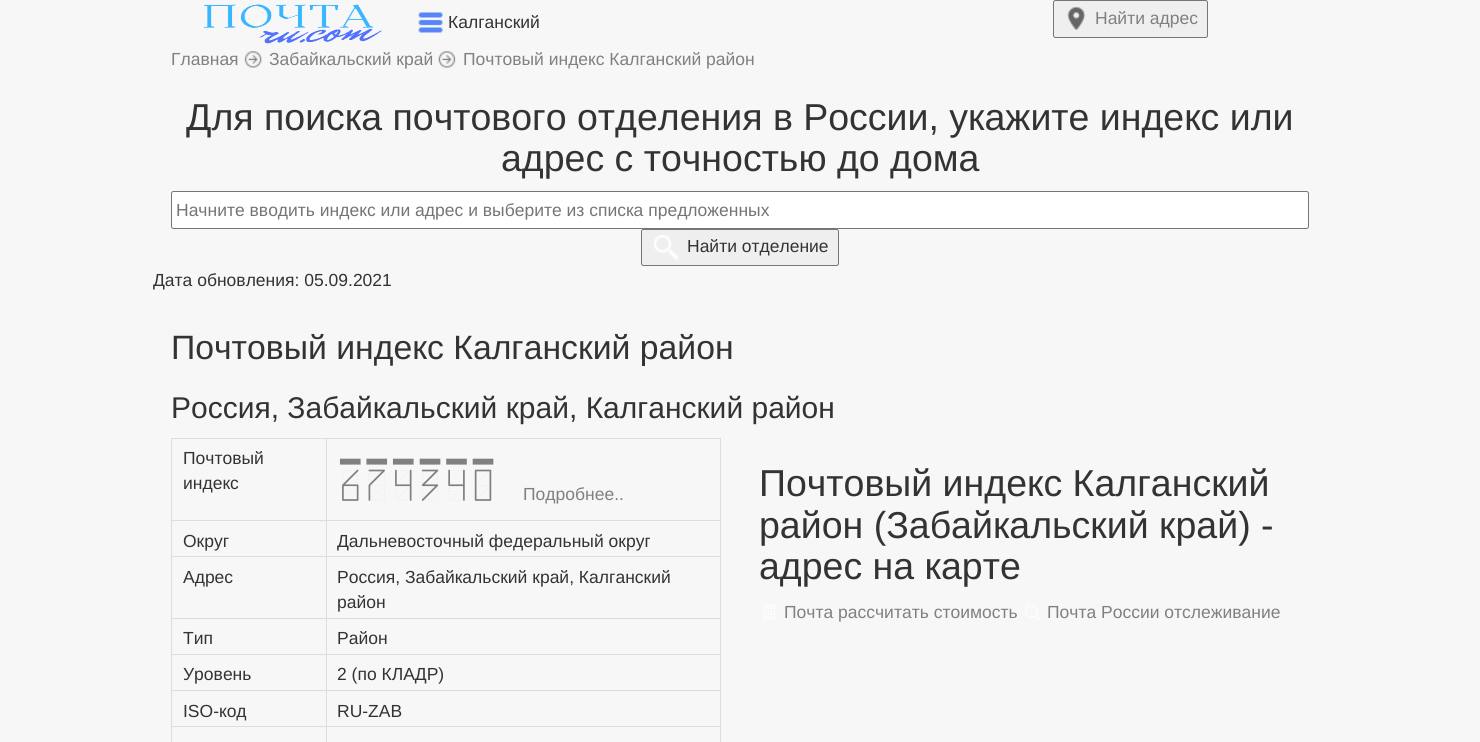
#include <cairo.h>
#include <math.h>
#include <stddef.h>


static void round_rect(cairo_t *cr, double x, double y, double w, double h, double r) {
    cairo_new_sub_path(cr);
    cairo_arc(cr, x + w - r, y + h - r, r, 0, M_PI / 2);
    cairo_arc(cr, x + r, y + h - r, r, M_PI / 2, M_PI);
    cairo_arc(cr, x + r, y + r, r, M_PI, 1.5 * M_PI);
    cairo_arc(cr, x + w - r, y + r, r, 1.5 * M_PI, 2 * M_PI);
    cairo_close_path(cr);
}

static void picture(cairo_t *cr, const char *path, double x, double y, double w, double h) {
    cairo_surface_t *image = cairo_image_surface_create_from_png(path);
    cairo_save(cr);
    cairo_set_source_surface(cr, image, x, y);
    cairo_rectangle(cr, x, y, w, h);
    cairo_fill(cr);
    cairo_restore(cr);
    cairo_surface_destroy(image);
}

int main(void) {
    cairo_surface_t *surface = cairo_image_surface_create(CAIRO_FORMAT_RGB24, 1480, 742);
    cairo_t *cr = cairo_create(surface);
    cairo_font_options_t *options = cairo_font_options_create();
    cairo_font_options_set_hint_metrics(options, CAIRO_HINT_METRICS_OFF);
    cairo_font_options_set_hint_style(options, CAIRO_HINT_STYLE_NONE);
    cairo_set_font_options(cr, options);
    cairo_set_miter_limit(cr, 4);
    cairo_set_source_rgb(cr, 0.965, 0.965, 0.965);
    cairo_paint(cr);
    picture(cr, "img1.png", 203, 4, 179, 40);
    picture(cr, "img2.png", 418, 12, 25, 21);
    cairo_select_font_face(cr, "Liberation Sans", CAIRO_FONT_SLANT_NORMAL, CAIRO_FONT_WEIGHT_NORMAL);
    cairo_set_font_size(cr, 17.5);
    cairo_set_source_rgb(cr, 0.2, 0.2, 0.2);
    cairo_move_to(cr, 448, 28);
    cairo_show_text(cr, "Калганский");
    cairo_set_source_rgb(cr, 0.937, 0.937, 0.937);
    round_rect(cr, 1053.5, 0.5, 154, 37, 2);
    cairo_fill_preserve(cr);
    cairo_set_source_rgb(cr, 0.463, 0.463, 0.463);
    cairo_set_line_width(cr, 1);
    cairo_stroke(cr);
    picture(cr, "img3.png", 1067, 6, 19, 25);
    cairo_set_source_rgb(cr, 0.502, 0.502, 0.502);
    cairo_move_to(cr, 1095, 24);
    cairo_show_text(cr, "Найти адрес");
    cairo_move_to(cr, 171, 65);
    cairo_show_text(cr, "Главная");
    picture(cr, "img4.png", 244, 51, 18, 17);
    cairo_move_to(cr, 269, 65);
    cairo_show_text(cr, "Забайкальский край");
    picture(cr, "img5.png", 438, 51, 18, 17);
    cairo_move_to(cr, 463, 65);
    cairo_show_text(cr, "Почтовый индекс Калганский район");
    cairo_set_font_size(cr, 37.5);
    cairo_set_source_rgb(cr, 0.2, 0.2, 0.2);
    cairo_move_to(cr, 186, 130);
    cairo_show_text(cr, "Для поиска почтового отделения в России, укажите индекс или");
    cairo_move_to(cr, 501, 171);
    cairo_show_text(cr, "адрес с точностью до дома");
    cairo_set_source_rgb(cr, 1, 1, 1);
    round_rect(cr, 171.5, 191.5, 1137, 37, 2);
    cairo_fill_preserve(cr);
    cairo_set_source_rgb(cr, 0.463, 0.463, 0.463);
    cairo_stroke(cr);
    cairo_set_font_size(cr, 17.5);
    cairo_set_source_rgb(cr, 0.459, 0.459, 0.459);
    cairo_move_to(cr, 176, 216);
    cairo_show_text(cr, "Начните вводить индекс или адрес и выберите из списка предложенных");
    cairo_set_source_rgb(cr, 0.937, 0.937, 0.937);
    round_rect(cr, 641.5, 229.5, 197, 36, 2);
    cairo_fill_preserve(cr);
    cairo_set_source_rgb(cr, 0.463, 0.463, 0.463);
    cairo_stroke(cr);
    picture(cr, "img6.png", 654, 235, 25, 25);
    cairo_set_source_rgb(cr, 0.2, 0.2, 0.2);
    cairo_move_to(cr, 687, 252);
    cairo_show_text(cr, "Найти отделение");
    cairo_move_to(cr, 153, 286);
    cairo_show_text(cr, "Дата обновления: 05.09.2021");
    cairo_set_font_size(cr, 33.75);
    cairo_move_to(cr, 171, 359);
    cairo_show_text(cr, "Почтовый индекс Калганский район");
    cairo_set_font_size(cr, 30);
    cairo_move_to(cr, 171, 418);
    cairo_show_text(cr, "Россия, Забайкальский край, Калганский район");
    cairo_set_source_rgb(cr, 0.867, 0.867, 0.867);
    cairo_rectangle(cr, 171, 438, 550, 1);
    cairo_fill(cr);
    cairo_rectangle(cr, 720, 438, 1, 304);
    cairo_fill(cr);
    cairo_rectangle(cr, 171, 438, 1, 304);
    cairo_fill(cr);
    cairo_set_font_size(cr, 17.5);
    cairo_set_source_rgb(cr, 0.2, 0.2, 0.2);
    cairo_move_to(cr, 183, 464);
    cairo_show_text(cr, "Почтовый");
    cairo_move_to(cr, 183, 489);
    cairo_show_text(cr, "индекс");
    cairo_set_source_rgb(cr, 0.867, 0.867, 0.867);
    cairo_rectangle(cr, 326, 520, 395, 1);
    cairo_fill(cr);
    cairo_rectangle(cr, 326, 556, 395, 1);
    cairo_fill(cr);
    cairo_rectangle(cr, 326, 618, 395, 1);
    cairo_fill(cr);
    cairo_rectangle(cr, 326, 654, 395, 1);
    cairo_fill(cr);
    cairo_rectangle(cr, 326, 690, 395, 1);
    cairo_fill(cr);
    cairo_rectangle(cr, 326, 726, 395, 1);
    cairo_fill(cr);
    cairo_rectangle(cr, 326, 726, 1, 16);
    cairo_fill(cr);
    cairo_rectangle(cr, 171, 726, 157, 1);
    cairo_fill(cr);
    cairo_rectangle(cr, 326, 690, 1, 38);
    cairo_fill(cr);
    cairo_rectangle(cr, 171, 690, 157, 1);
    cairo_fill(cr);
    cairo_rectangle(cr, 326, 654, 1, 37);
    cairo_fill(cr);
    cairo_rectangle(cr, 171, 654, 157, 1);
    cairo_fill(cr);
    cairo_rectangle(cr, 326, 618, 1, 37);
    cairo_fill(cr);
    cairo_rectangle(cr, 171, 618, 157, 1);
    cairo_fill(cr);
    cairo_rectangle(cr, 326, 556, 1, 63);
    cairo_fill(cr);
    cairo_rectangle(cr, 171, 556, 157, 1);
    cairo_fill(cr);
    cairo_rectangle(cr, 326, 520, 1, 38);
    cairo_fill(cr);
    cairo_rectangle(cr, 171, 520, 157, 1);
    cairo_fill(cr);
    cairo_rectangle(cr, 326, 438, 1, 83);
    cairo_fill(cr);
    cairo_select_font_face(cr, "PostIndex", CAIRO_FONT_SLANT_NORMAL, CAIRO_FONT_WEIGHT_NORMAL);
    cairo_set_font_size(cr, 50);
    cairo_set_source_rgb(cr, 0.502, 0.502, 0.502);
    cairo_move_to(cr, 337, 500);
    cairo_show_text(cr, "674340");
    cairo_select_font_face(cr, "Liberation Sans", CAIRO_FONT_SLANT_NORMAL, CAIRO_FONT_WEIGHT_NORMAL);
    cairo_set_font_size(cr, 17.5);
    cairo_move_to(cr, 523, 500);
    cairo_show_text(cr, "Подробнее..");
    cairo_set_source_rgb(cr, 0.2, 0.2, 0.2);
    cairo_move_to(cr, 183, 547);
    cairo_show_text(cr, "Округ");
    cairo_move_to(cr, 337, 547);
    cairo_show_text(cr, "Дальневосточный федеральный округ");
    cairo_move_to(cr, 183, 583);
    cairo_show_text(cr, "Адрес");
    cairo_move_to(cr, 337, 583);
    cairo_show_text(cr, "Россия, Забайкальский край, Калганский");
    cairo_move_to(cr, 337, 608);
    cairo_show_text(cr, "район");
    cairo_move_to(cr, 183, 644);
    cairo_show_text(cr, "Тип");
    cairo_move_to(cr, 337, 644);
    cairo_show_text(cr, "Район");
    cairo_move_to(cr, 183, 680);
    cairo_show_text(cr, "Уровень");
    cairo_move_to(cr, 337, 680);
    cairo_show_text(cr, "2 (по КЛАДР)");
    cairo_move_to(cr, 183, 717);
    cairo_show_text(cr, "ISO-код");
    cairo_move_to(cr, 337, 717);
    cairo_show_text(cr, "RU-ZAB");
    cairo_set_font_size(cr, 37.5);
    cairo_move_to(cr, 759, 496);
    cairo_show_text(cr, "Почтовый индекс Калганский");
    cairo_move_to(cr, 759, 538);
    cairo_show_text(cr, "район (Забайкальский край) -");
    cairo_move_to(cr, 759, 579);
    cairo_show_text(cr, "адрес на карте");
    picture(cr, "img7.png", 763, 605, 12, 15);
    cairo_set_font_size(cr, 17.5);
    cairo_set_source_rgb(cr, 0.502, 0.502, 0.502);
    cairo_move_to(cr, 784, 618);
    cairo_show_text(cr, "Почта рассчитать стоимость");
    picture(cr, "img8.png", 1025, 605, 15, 15);
    cairo_move_to(cr, 1047, 618);
    cairo_show_text(cr, "Почта России отслеживание");
    cairo_surface_write_to_png(surface, "page.png");
    cairo_font_options_destroy(options);
    cairo_destroy(cr);
    cairo_surface_destroy(surface);
    return 0;
}
